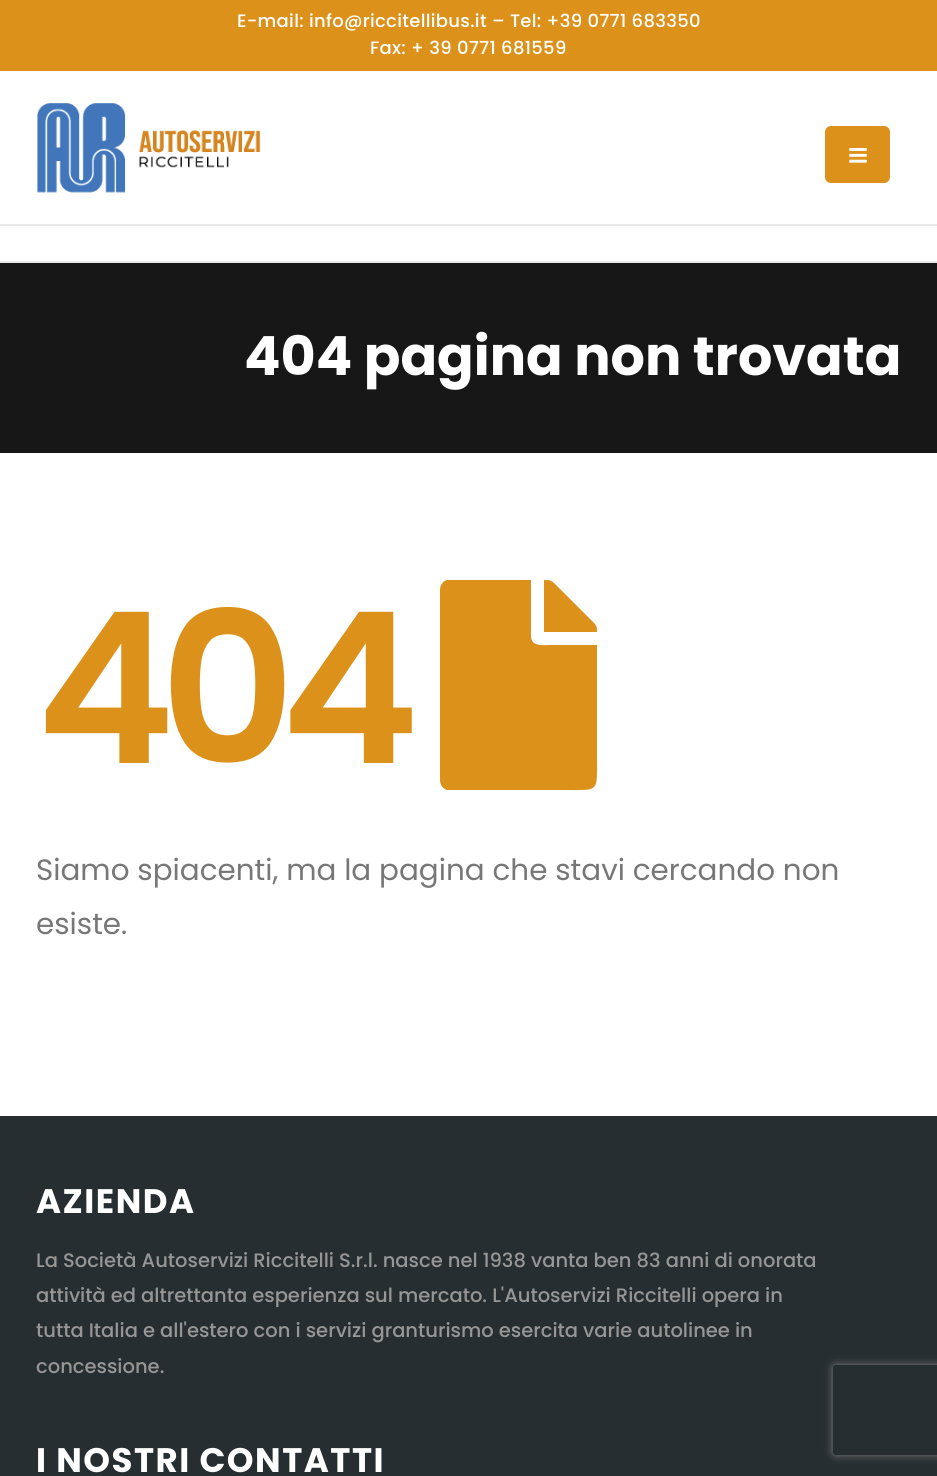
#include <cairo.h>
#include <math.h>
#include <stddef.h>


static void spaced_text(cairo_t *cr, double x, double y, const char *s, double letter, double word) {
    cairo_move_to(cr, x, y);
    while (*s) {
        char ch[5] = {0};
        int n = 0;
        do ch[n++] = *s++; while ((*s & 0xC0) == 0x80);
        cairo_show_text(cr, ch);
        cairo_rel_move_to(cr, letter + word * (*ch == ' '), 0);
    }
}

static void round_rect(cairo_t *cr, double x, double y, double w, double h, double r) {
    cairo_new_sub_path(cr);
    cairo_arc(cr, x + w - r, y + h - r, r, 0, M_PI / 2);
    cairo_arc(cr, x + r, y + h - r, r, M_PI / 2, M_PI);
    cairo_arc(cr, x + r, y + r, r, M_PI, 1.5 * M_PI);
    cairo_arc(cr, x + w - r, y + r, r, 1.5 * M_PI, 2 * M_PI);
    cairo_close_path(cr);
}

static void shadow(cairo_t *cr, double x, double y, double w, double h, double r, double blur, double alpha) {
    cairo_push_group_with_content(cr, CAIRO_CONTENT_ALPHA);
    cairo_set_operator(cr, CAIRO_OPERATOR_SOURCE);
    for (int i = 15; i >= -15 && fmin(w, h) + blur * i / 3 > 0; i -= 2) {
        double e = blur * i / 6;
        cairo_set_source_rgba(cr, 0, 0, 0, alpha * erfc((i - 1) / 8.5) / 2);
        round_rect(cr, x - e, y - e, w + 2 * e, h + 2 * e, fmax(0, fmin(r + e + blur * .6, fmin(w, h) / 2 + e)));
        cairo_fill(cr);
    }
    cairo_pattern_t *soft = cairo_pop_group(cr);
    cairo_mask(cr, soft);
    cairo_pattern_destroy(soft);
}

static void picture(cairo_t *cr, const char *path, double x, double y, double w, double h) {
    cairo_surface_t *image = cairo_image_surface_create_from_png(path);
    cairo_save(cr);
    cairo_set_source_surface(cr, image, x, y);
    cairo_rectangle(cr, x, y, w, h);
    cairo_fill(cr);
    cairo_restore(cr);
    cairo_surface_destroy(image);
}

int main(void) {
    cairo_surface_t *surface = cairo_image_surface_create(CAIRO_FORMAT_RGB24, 937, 1476);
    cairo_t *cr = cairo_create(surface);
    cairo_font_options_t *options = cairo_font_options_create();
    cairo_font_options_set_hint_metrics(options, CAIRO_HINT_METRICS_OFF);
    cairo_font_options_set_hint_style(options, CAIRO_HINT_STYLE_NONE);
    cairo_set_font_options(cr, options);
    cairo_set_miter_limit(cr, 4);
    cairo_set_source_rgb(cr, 1, 1, 1);
    cairo_paint(cr);
    cairo_set_source_rgb(cr, 0.863, 0.569, 0.106);
    cairo_rectangle(cr, 0, 0, 937, 71);
    cairo_fill(cr);
    cairo_select_font_face(cr, "Poppins Medium", CAIRO_FONT_SLANT_NORMAL, CAIRO_FONT_WEIGHT_NORMAL);
    cairo_set_font_size(cr, 18);
    cairo_set_source_rgb(cr, 1, 1, 1);
    spaced_text(cr, 237, 27, "E-mail: info@riccitellibus.it – Tel: +39 0771 683350", 0.3, 0);
    spaced_text(cr, 370, 54, "Fax: + 39 0771 681559", 0.3, 0);
    cairo_set_source_rgb(cr, 0.914, 0.914, 0.914);
    cairo_rectangle(cr, 0, 261, 937, 2);
    cairo_fill(cr);
    cairo_rectangle(cr, 0, 224, 937, 2);
    cairo_fill(cr);
    picture(cr, "img1.png", 37, 103, 224, 90);
    cairo_set_source_rgb(cr, 0.863, 0.569, 0.106);
    round_rect(cr, 825, 126, 65, 57, 6);
    cairo_fill(cr);
    picture(cr, "img2.png", 849, 148, 18, 15);
    cairo_set_source_rgb(cr, 0.09, 0.09, 0.09);
    cairo_rectangle(cr, 0, 263, 937, 190);
    cairo_fill(cr);
    cairo_select_font_face(cr, "Poppins", CAIRO_FONT_SLANT_NORMAL, CAIRO_FONT_WEIGHT_BOLD);
    cairo_set_font_size(cr, 54);
    cairo_set_source_rgb(cr, 1, 1, 1);
    cairo_move_to(cr, 244, 375);
    cairo_show_text(cr, "404 pagina non trovata");
    cairo_select_font_face(cr, "Poppins SemiBold", CAIRO_FONT_SLANT_NORMAL, CAIRO_FONT_WEIGHT_NORMAL);
    cairo_set_font_size(cr, 210);
    cairo_set_source_rgb(cr, 0.863, 0.569, 0.106);
    spaced_text(cr, 36, 763, "404", -15, 0);
    cairo_new_path(cr);
    cairo_move_to(cr, 531, 636);
    cairo_curve_to(cr, 531, 647, 543, 645, 551, 645);
    cairo_line_to(cr, 597, 645);
    cairo_line_to(cr, 597, 757);
    cairo_curve_to(cr, 597, 793, 600, 790, 564, 790);
    cairo_line_to(cr, 447, 790);
    cairo_curve_to(cr, 443, 789, 440, 785, 440, 780);
    cairo_line_to(cr, 440, 590);
    cairo_curve_to(cr, 440, 585, 443, 581, 447, 580);
    cairo_line_to(cr, 531, 580);
    cairo_close_path(cr);
    cairo_move_to(cr, 597, 630);
    cairo_line_to(cr, 597, 632);
    cairo_line_to(cr, 544, 632);
    cairo_line_to(cr, 544, 580);
    cairo_line_to(cr, 547, 580);
    cairo_curve_to(cr, 550, 580, 552, 581, 554, 583);
    cairo_line_to(cr, 594, 623);
    cairo_curve_to(cr, 596, 625, 597, 627, 597, 630);
    cairo_close_path(cr);
    cairo_fill(cr);
    cairo_select_font_face(cr, "Poppins", CAIRO_FONT_SLANT_NORMAL, CAIRO_FONT_WEIGHT_NORMAL);
    cairo_set_font_size(cr, 29.4);
    cairo_set_source_rgb(cr, 0.467, 0.467, 0.467);
    cairo_move_to(cr, 36, 880);
    cairo_show_text(cr, "Siamo spiacenti, ma la pagina che stavi cercando non");
    cairo_move_to(cr, 36, 934);
    cairo_show_text(cr, "esiste.");
    cairo_set_source_rgb(cr, 0.153, 0.18, 0.196);
    cairo_rectangle(cr, 0, 1116, 937, 360);
    cairo_fill(cr);
    cairo_select_font_face(cr, "Poppins", CAIRO_FONT_SLANT_NORMAL, CAIRO_FONT_WEIGHT_BOLD);
    cairo_set_font_size(cr, 34);
    cairo_set_source_rgb(cr, 1, 1, 1);
    spaced_text(cr, 36, 1213, "AZIENDA", 1.5, 0);
    cairo_select_font_face(cr, "Poppins Medium", CAIRO_FONT_SLANT_NORMAL, CAIRO_FONT_WEIGHT_NORMAL);
    cairo_set_font_size(cr, 19.5);
    cairo_set_source_rgb(cr, 0.588, 0.588, 0.588);
    cairo_move_to(cr, 36, 1267);
    cairo_show_text(cr, "La Società Autoservizi Riccitelli S.r.l. nasce nel 1938 vanta ben 83 anni di onorata");
    cairo_move_to(cr, 36, 1302);
    cairo_show_text(cr, "attività ed altrettanta esperienza sul mercato. L'Autoservizi Riccitelli opera in");
    cairo_move_to(cr, 36, 1337);
    cairo_show_text(cr, "tutta Italia e all'estero con i servizi granturismo esercita varie autolinee in");
    cairo_move_to(cr, 36, 1373);
    cairo_show_text(cr, "concessione.");
    cairo_select_font_face(cr, "Poppins", CAIRO_FONT_SLANT_NORMAL, CAIRO_FONT_WEIGHT_BOLD);
    cairo_set_font_size(cr, 34);
    cairo_set_source_rgb(cr, 1, 1, 1);
    spaced_text(cr, 36, 1472, "I NOSTRI CONTATTI", 1.5, 0);
    cairo_save(cr);
    cairo_set_fill_rule(cr, CAIRO_FILL_RULE_EVEN_ODD);
    cairo_new_path(cr);
    cairo_move_to(cr, 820, 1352);
    cairo_line_to(cr, 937, 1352);
    cairo_line_to(cr, 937, 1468);
    cairo_line_to(cr, 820, 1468);
    cairo_close_path(cr);
    cairo_move_to(cr, 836, 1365);
    cairo_line_to(cr, 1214, 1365);
    cairo_curve_to(cr, 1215.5, 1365, 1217, 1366.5, 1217, 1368);
    cairo_line_to(cr, 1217, 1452);
    cairo_curve_to(cr, 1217, 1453.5, 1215.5, 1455, 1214, 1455);
    cairo_line_to(cr, 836, 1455);
    cairo_curve_to(cr, 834.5, 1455, 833, 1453.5, 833, 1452);
    cairo_line_to(cr, 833, 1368);
    cairo_curve_to(cr, 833, 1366.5, 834.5, 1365, 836, 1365);
    cairo_close_path(cr);
    cairo_clip(cr);
    cairo_set_source_rgb(cr, 0.502, 0.502, 0.502);
    shadow(cr, 833, 1365, 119, 90, 3, 4, 1);
    cairo_restore(cr);
    cairo_surface_write_to_png(surface, "page.png");
    cairo_font_options_destroy(options);
    cairo_destroy(cr);
    cairo_surface_destroy(surface);
    return 0;
}
